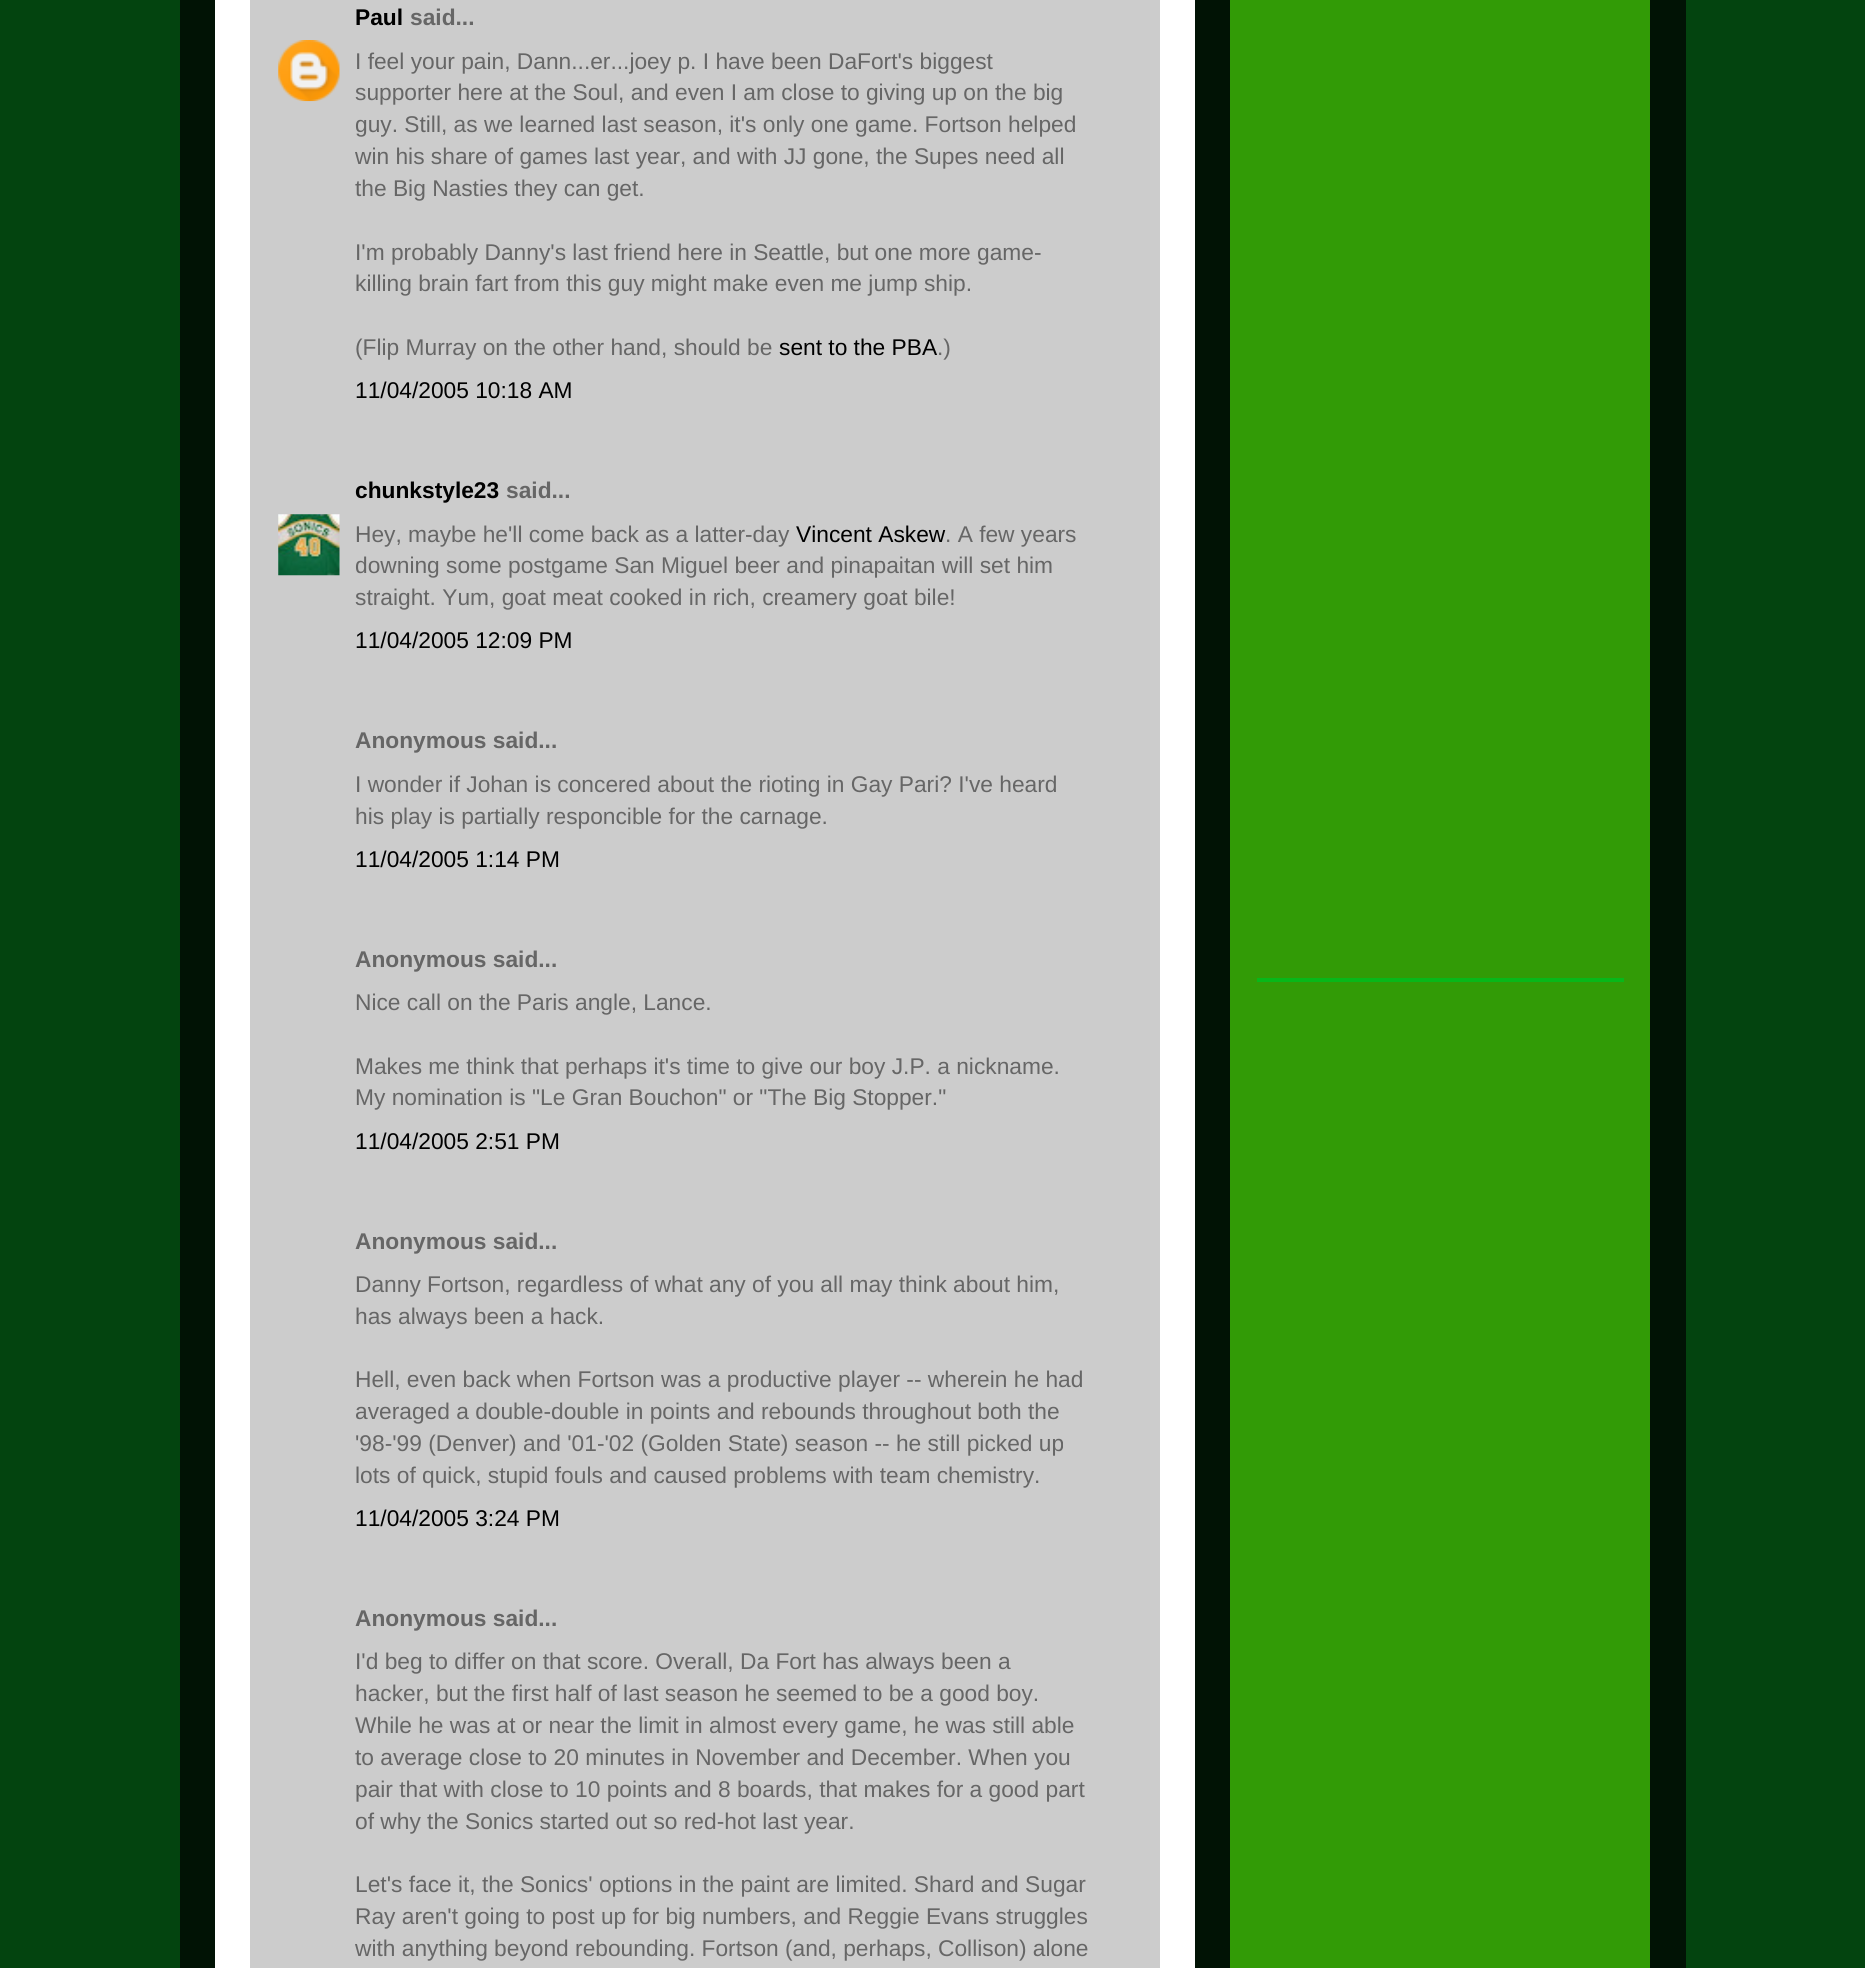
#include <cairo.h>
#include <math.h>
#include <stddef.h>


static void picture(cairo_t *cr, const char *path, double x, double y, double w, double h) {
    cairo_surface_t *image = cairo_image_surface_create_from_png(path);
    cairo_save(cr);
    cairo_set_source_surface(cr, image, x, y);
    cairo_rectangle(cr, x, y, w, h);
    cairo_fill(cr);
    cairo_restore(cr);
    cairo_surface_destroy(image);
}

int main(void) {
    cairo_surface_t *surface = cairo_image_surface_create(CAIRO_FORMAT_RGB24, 1865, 1968);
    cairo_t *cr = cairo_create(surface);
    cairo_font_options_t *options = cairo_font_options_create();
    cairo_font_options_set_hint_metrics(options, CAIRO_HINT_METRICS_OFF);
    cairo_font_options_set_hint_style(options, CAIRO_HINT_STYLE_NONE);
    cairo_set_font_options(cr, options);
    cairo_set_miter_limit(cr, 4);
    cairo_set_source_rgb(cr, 0.012, 0.267, 0.059);
    cairo_paint(cr);
    cairo_set_source_rgb(cr, 0.004, 0.078, 0.02);
    cairo_rectangle(cr, 180, 0, 1506, 1968);
    cairo_fill(cr);
    cairo_set_source_rgb(cr, 1, 1, 1);
    cairo_rectangle(cr, 215, 0, 980, 1968);
    cairo_fill(cr);
    cairo_set_source_rgb(cr, 0.8, 0.8, 0.8);
    cairo_rectangle(cr, 250, 0, 910, 1968);
    cairo_fill(cr);
    cairo_select_font_face(cr, "Liberation Sans", CAIRO_FONT_SLANT_NORMAL, CAIRO_FONT_WEIGHT_BOLD);
    cairo_set_font_size(cr, 22.75);
    cairo_set_source_rgb(cr, 0, 0, 0);
    cairo_move_to(cr, 355, 25);
    cairo_show_text(cr, "Paul");
    cairo_set_source_rgb(cr, 0.4, 0.4, 0.4);
    cairo_move_to(cr, 410, 25);
    cairo_show_text(cr, "said...");
    picture(cr, "img1.png", 278, 40, 62, 62);
    cairo_select_font_face(cr, "Liberation Sans", CAIRO_FONT_SLANT_NORMAL, CAIRO_FONT_WEIGHT_NORMAL);
    cairo_move_to(cr, 355, 69);
    cairo_show_text(cr, "I feel your pain, Dann...er...joey p. I have been DaFort's biggest");
    cairo_move_to(cr, 355, 100);
    cairo_show_text(cr, "supporter here at the Soul, and even I am close to giving up on the big");
    cairo_move_to(cr, 355, 132);
    cairo_show_text(cr, "guy. Still, as we learned last season, it's only one game. Fortson helped");
    cairo_move_to(cr, 355, 164);
    cairo_show_text(cr, "win his share of games last year, and with JJ gone, the Supes need all");
    cairo_move_to(cr, 355, 196);
    cairo_show_text(cr, "the Big Nasties they can get.");
    cairo_move_to(cr, 355, 260);
    cairo_show_text(cr, "I'm probably Danny's last friend here in Seattle, but one more game-");
    cairo_move_to(cr, 355, 291);
    cairo_show_text(cr, "killing brain fart from this guy might make even me jump ship.");
    cairo_move_to(cr, 355, 355);
    cairo_show_text(cr, "(Flip Murray on the other hand, should be");
    cairo_set_source_rgb(cr, 0, 0, 0);
    cairo_move_to(cr, 779, 355);
    cairo_show_text(cr, "sent to the PBA");
    cairo_set_source_rgb(cr, 0.4, 0.4, 0.4);
    cairo_move_to(cr, 937, 355);
    cairo_show_text(cr, ".)");
    cairo_set_source_rgb(cr, 0, 0, 0);
    cairo_move_to(cr, 355, 398);
    cairo_show_text(cr, "11/04/2005 10:18 AM");
    cairo_select_font_face(cr, "Liberation Sans", CAIRO_FONT_SLANT_NORMAL, CAIRO_FONT_WEIGHT_BOLD);
    cairo_move_to(cr, 355, 498);
    cairo_show_text(cr, "chunkstyle23");
    cairo_set_source_rgb(cr, 0.4, 0.4, 0.4);
    cairo_move_to(cr, 506, 498);
    cairo_show_text(cr, "said...");
    picture(cr, "img2.png", 278, 514, 62, 62);
    cairo_select_font_face(cr, "Liberation Sans", CAIRO_FONT_SLANT_NORMAL, CAIRO_FONT_WEIGHT_NORMAL);
    cairo_move_to(cr, 355, 542);
    cairo_show_text(cr, "Hey, maybe he'll come back as a latter-day");
    cairo_set_source_rgb(cr, 0, 0, 0);
    cairo_move_to(cr, 796, 542);
    cairo_show_text(cr, "Vincent Askew");
    cairo_set_source_rgb(cr, 0.4, 0.4, 0.4);
    cairo_move_to(cr, 945, 542);
    cairo_show_text(cr, ". A few years");
    cairo_move_to(cr, 355, 573);
    cairo_show_text(cr, "downing some postgame San Miguel beer and pinapaitan will set him");
    cairo_move_to(cr, 355, 605);
    cairo_show_text(cr, "straight. Yum, goat meat cooked in rich, creamery goat bile!");
    cairo_set_source_rgb(cr, 0, 0, 0);
    cairo_move_to(cr, 355, 648);
    cairo_show_text(cr, "11/04/2005 12:09 PM");
    cairo_select_font_face(cr, "Liberation Sans", CAIRO_FONT_SLANT_NORMAL, CAIRO_FONT_WEIGHT_BOLD);
    cairo_set_source_rgb(cr, 0.4, 0.4, 0.4);
    cairo_move_to(cr, 355, 748);
    cairo_show_text(cr, "Anonymous said...");
    cairo_select_font_face(cr, "Liberation Sans", CAIRO_FONT_SLANT_NORMAL, CAIRO_FONT_WEIGHT_NORMAL);
    cairo_move_to(cr, 355, 792);
    cairo_show_text(cr, "I wonder if Johan is concered about the rioting in Gay Pari? I've heard");
    cairo_move_to(cr, 355, 824);
    cairo_show_text(cr, "his play is partially responcible for the carnage.");
    cairo_set_source_rgb(cr, 0, 0, 0);
    cairo_move_to(cr, 355, 867);
    cairo_show_text(cr, "11/04/2005 1:14 PM");
    cairo_select_font_face(cr, "Liberation Sans", CAIRO_FONT_SLANT_NORMAL, CAIRO_FONT_WEIGHT_BOLD);
    cairo_set_source_rgb(cr, 0.4, 0.4, 0.4);
    cairo_move_to(cr, 355, 967);
    cairo_show_text(cr, "Anonymous said...");
    cairo_select_font_face(cr, "Liberation Sans", CAIRO_FONT_SLANT_NORMAL, CAIRO_FONT_WEIGHT_NORMAL);
    cairo_move_to(cr, 355, 1010);
    cairo_show_text(cr, "Nice call on the Paris angle, Lance.");
    cairo_move_to(cr, 355, 1074);
    cairo_show_text(cr, "Makes me think that perhaps it's time to give our boy J.P. a nickname.");
    cairo_move_to(cr, 355, 1105);
    cairo_show_text(cr, "My nomination is \"Le Gran Bouchon\" or \"The Big Stopper.\"");
    cairo_set_source_rgb(cr, 0, 0, 0);
    cairo_move_to(cr, 355, 1149);
    cairo_show_text(cr, "11/04/2005 2:51 PM");
    cairo_select_font_face(cr, "Liberation Sans", CAIRO_FONT_SLANT_NORMAL, CAIRO_FONT_WEIGHT_BOLD);
    cairo_set_source_rgb(cr, 0.4, 0.4, 0.4);
    cairo_move_to(cr, 355, 1249);
    cairo_show_text(cr, "Anonymous said...");
    cairo_select_font_face(cr, "Liberation Sans", CAIRO_FONT_SLANT_NORMAL, CAIRO_FONT_WEIGHT_NORMAL);
    cairo_move_to(cr, 355, 1292);
    cairo_show_text(cr, "Danny Fortson, regardless of what any of you all may think about him,");
    cairo_move_to(cr, 355, 1324);
    cairo_show_text(cr, "has always been a hack.");
    cairo_move_to(cr, 355, 1387);
    cairo_show_text(cr, "Hell, even back when Fortson was a productive player -- wherein he had");
    cairo_move_to(cr, 355, 1419);
    cairo_show_text(cr, "averaged a double-double in points and rebounds throughout both the");
    cairo_move_to(cr, 355, 1451);
    cairo_show_text(cr, "'98-'99 (Denver) and '01-'02 (Golden State) season -- he still picked up");
    cairo_move_to(cr, 355, 1483);
    cairo_show_text(cr, "lots of quick, stupid fouls and caused problems with team chemistry.");
    cairo_set_source_rgb(cr, 0, 0, 0);
    cairo_move_to(cr, 355, 1526);
    cairo_show_text(cr, "11/04/2005 3:24 PM");
    cairo_select_font_face(cr, "Liberation Sans", CAIRO_FONT_SLANT_NORMAL, CAIRO_FONT_WEIGHT_BOLD);
    cairo_set_source_rgb(cr, 0.4, 0.4, 0.4);
    cairo_move_to(cr, 355, 1626);
    cairo_show_text(cr, "Anonymous said...");
    cairo_select_font_face(cr, "Liberation Sans", CAIRO_FONT_SLANT_NORMAL, CAIRO_FONT_WEIGHT_NORMAL);
    cairo_move_to(cr, 355, 1669);
    cairo_show_text(cr, "I'd beg to differ on that score. Overall, Da Fort has always been a");
    cairo_move_to(cr, 355, 1701);
    cairo_show_text(cr, "hacker, but the first half of last season he seemed to be a good boy.");
    cairo_move_to(cr, 355, 1733);
    cairo_show_text(cr, "While he was at or near the limit in almost every game, he was still able");
    cairo_move_to(cr, 355, 1765);
    cairo_show_text(cr, "to average close to 20 minutes in November and December. When you");
    cairo_move_to(cr, 355, 1797);
    cairo_show_text(cr, "pair that with close to 10 points and 8 boards, that makes for a good part");
    cairo_move_to(cr, 355, 1829);
    cairo_show_text(cr, "of why the Sonics started out so red-hot last year.");
    cairo_move_to(cr, 355, 1892);
    cairo_show_text(cr, "Let's face it, the Sonics' options in the paint are limited. Shard and Sugar");
    cairo_move_to(cr, 355, 1924);
    cairo_show_text(cr, "Ray aren't going to post up for big numbers, and Reggie Evans struggles");
    cairo_move_to(cr, 355, 1956);
    cairo_show_text(cr, "with anything beyond rebounding. Fortson (and, perhaps, Collison) alone");
    cairo_set_source_rgb(cr, 0.196, 0.608, 0.027);
    cairo_rectangle(cr, 1230, 0, 420, 1968);
    cairo_fill(cr);
    cairo_set_source_rgb(cr, 0.035, 0.722, 0.098);
    cairo_rectangle(cr, 1257, 978, 367, 4);
    cairo_fill(cr);
    cairo_surface_write_to_png(surface, "page.png");
    cairo_font_options_destroy(options);
    cairo_destroy(cr);
    cairo_surface_destroy(surface);
    return 0;
}
